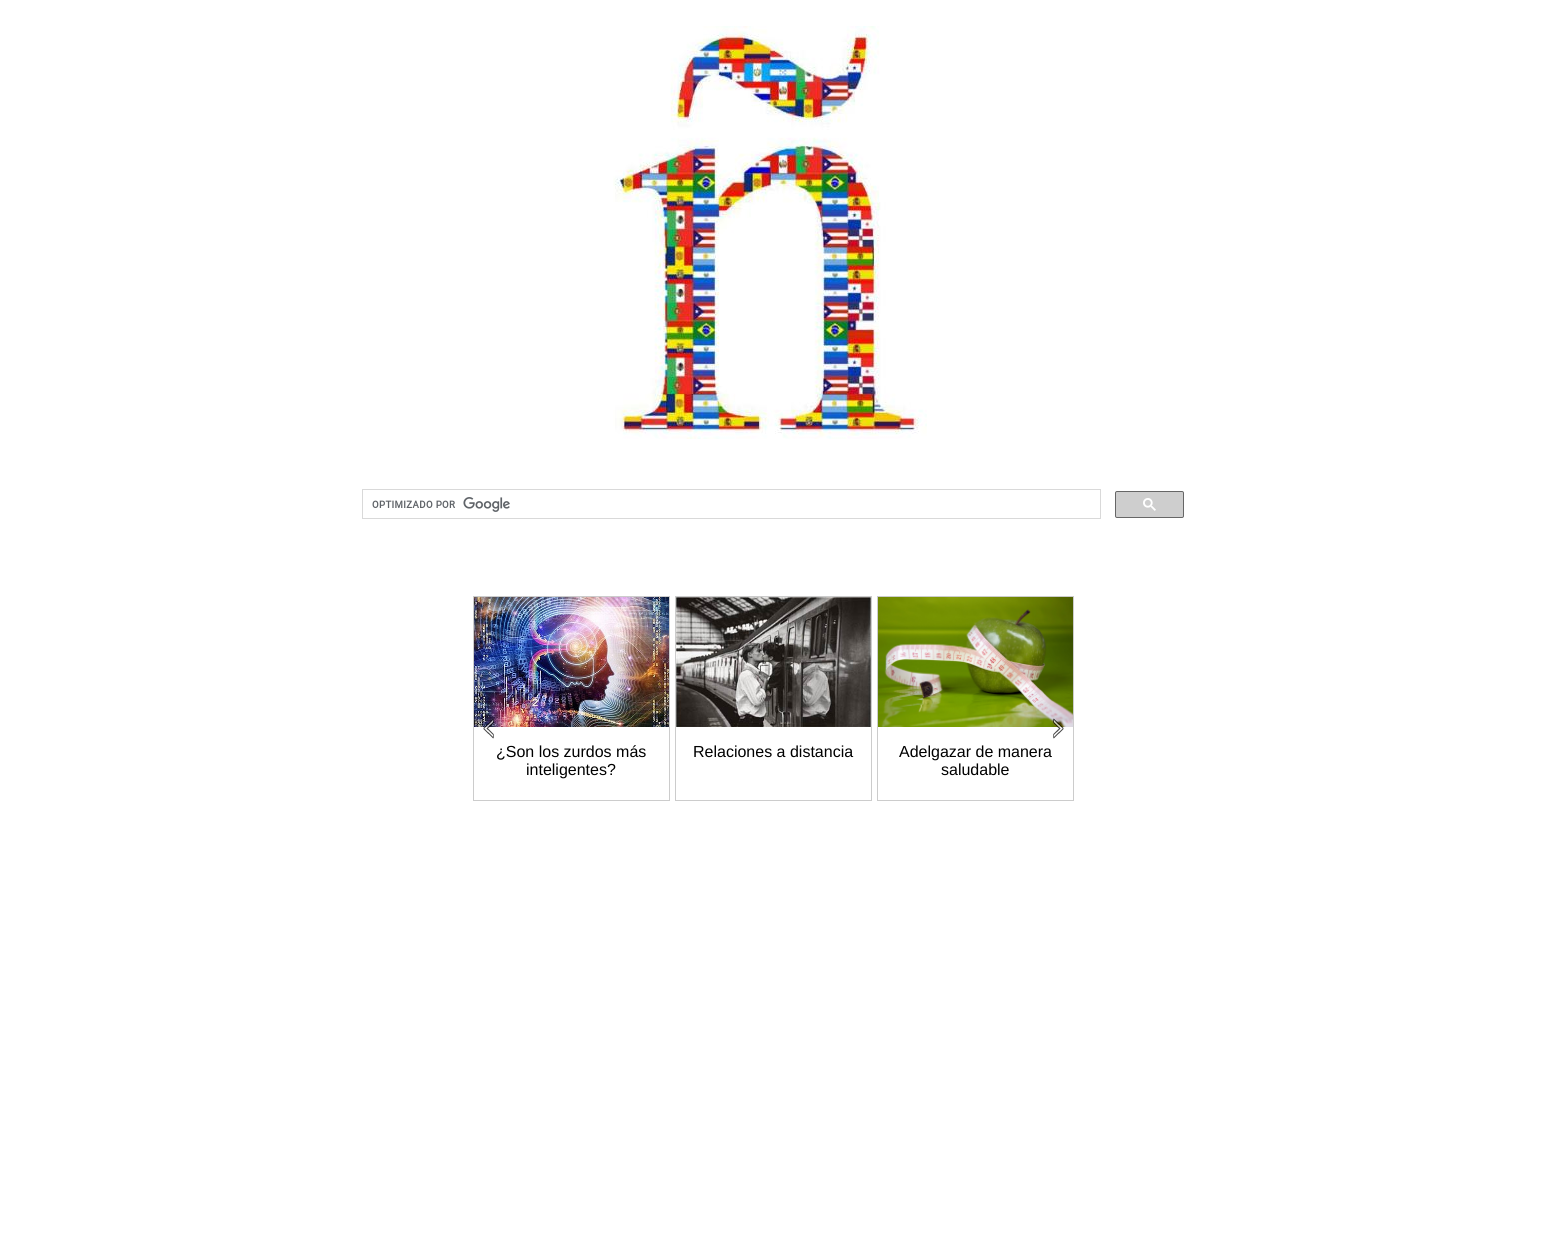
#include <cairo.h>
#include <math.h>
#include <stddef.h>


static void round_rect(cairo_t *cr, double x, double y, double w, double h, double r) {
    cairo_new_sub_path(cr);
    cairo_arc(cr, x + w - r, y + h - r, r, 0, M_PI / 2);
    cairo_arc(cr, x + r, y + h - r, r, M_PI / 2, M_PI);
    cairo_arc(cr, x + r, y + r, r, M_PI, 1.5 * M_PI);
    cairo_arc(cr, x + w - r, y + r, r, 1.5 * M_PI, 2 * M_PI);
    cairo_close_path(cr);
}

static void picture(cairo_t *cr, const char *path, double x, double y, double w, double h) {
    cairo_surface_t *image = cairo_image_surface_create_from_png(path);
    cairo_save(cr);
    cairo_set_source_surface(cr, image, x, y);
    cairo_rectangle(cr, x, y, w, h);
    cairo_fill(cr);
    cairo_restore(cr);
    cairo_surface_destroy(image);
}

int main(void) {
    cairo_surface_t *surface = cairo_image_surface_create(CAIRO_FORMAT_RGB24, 1546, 1244);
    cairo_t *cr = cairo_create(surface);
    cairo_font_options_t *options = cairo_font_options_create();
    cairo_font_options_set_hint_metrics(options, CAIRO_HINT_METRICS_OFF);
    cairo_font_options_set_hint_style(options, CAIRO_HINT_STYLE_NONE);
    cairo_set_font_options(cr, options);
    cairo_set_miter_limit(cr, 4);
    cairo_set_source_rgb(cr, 1, 1, 1);
    cairo_paint(cr);
    picture(cr, "img1.png", 613, 26, 314, 413);
    cairo_rectangle(cr, 362.5, 489.5, 738, 29);
    cairo_set_source_rgb(cr, 0.851, 0.851, 0.851);
    cairo_set_line_width(cr, 1);
    cairo_stroke(cr);
    picture(cr, "img2.png", 372, 497, 138, 15);
    cairo_set_source_rgb(cr, 0.808, 0.808, 0.808);
    round_rect(cr, 1115.5, 491.5, 68, 26, 1.5);
    cairo_fill_preserve(cr);
    cairo_set_source_rgb(cr, 0.4, 0.4, 0.4);
    cairo_stroke(cr);
    picture(cr, "img3.png", 1143, 498, 13, 13);
    cairo_rectangle(cr, 473.5, 596.5, 196, 204);
    cairo_set_source_rgb(cr, 0.8, 0.8, 0.8);
    cairo_stroke(cr);
    picture(cr, "img6.png", 474, 597, 195, 130);
    picture(cr, "img4.png", 483, 718, 11, 21);
    cairo_rectangle(cr, 877.5, 596.5, 196, 204);
    cairo_stroke(cr);
    picture(cr, "img8.png", 878, 597, 195, 130);
    picture(cr, "img5.png", 1053, 718, 11, 21);
    cairo_select_font_face(cr, "Liberation Sans", CAIRO_FONT_SLANT_NORMAL, CAIRO_FONT_WEIGHT_NORMAL);
    cairo_set_font_size(cr, 16);
    cairo_set_source_rgb(cr, 0, 0, 0);
    cairo_move_to(cr, 496, 757);
    cairo_show_text(cr, "¿Son los zurdos más");
    cairo_move_to(cr, 526, 775);
    cairo_show_text(cr, "inteligentes?");
    cairo_rectangle(cr, 675.5, 596.5, 196, 204);
    cairo_set_source_rgb(cr, 0.8, 0.8, 0.8);
    cairo_stroke(cr);
    picture(cr, "img7.png", 676, 597, 195, 130);
    cairo_set_source_rgb(cr, 0, 0, 0);
    cairo_move_to(cr, 693, 757);
    cairo_show_text(cr, "Relaciones a distancia");
    cairo_move_to(cr, 899, 757);
    cairo_show_text(cr, "Adelgazar de manera");
    cairo_move_to(cr, 941, 775);
    cairo_show_text(cr, "saludable");
    cairo_surface_write_to_png(surface, "page.png");
    cairo_font_options_destroy(options);
    cairo_destroy(cr);
    cairo_surface_destroy(surface);
    return 0;
}
